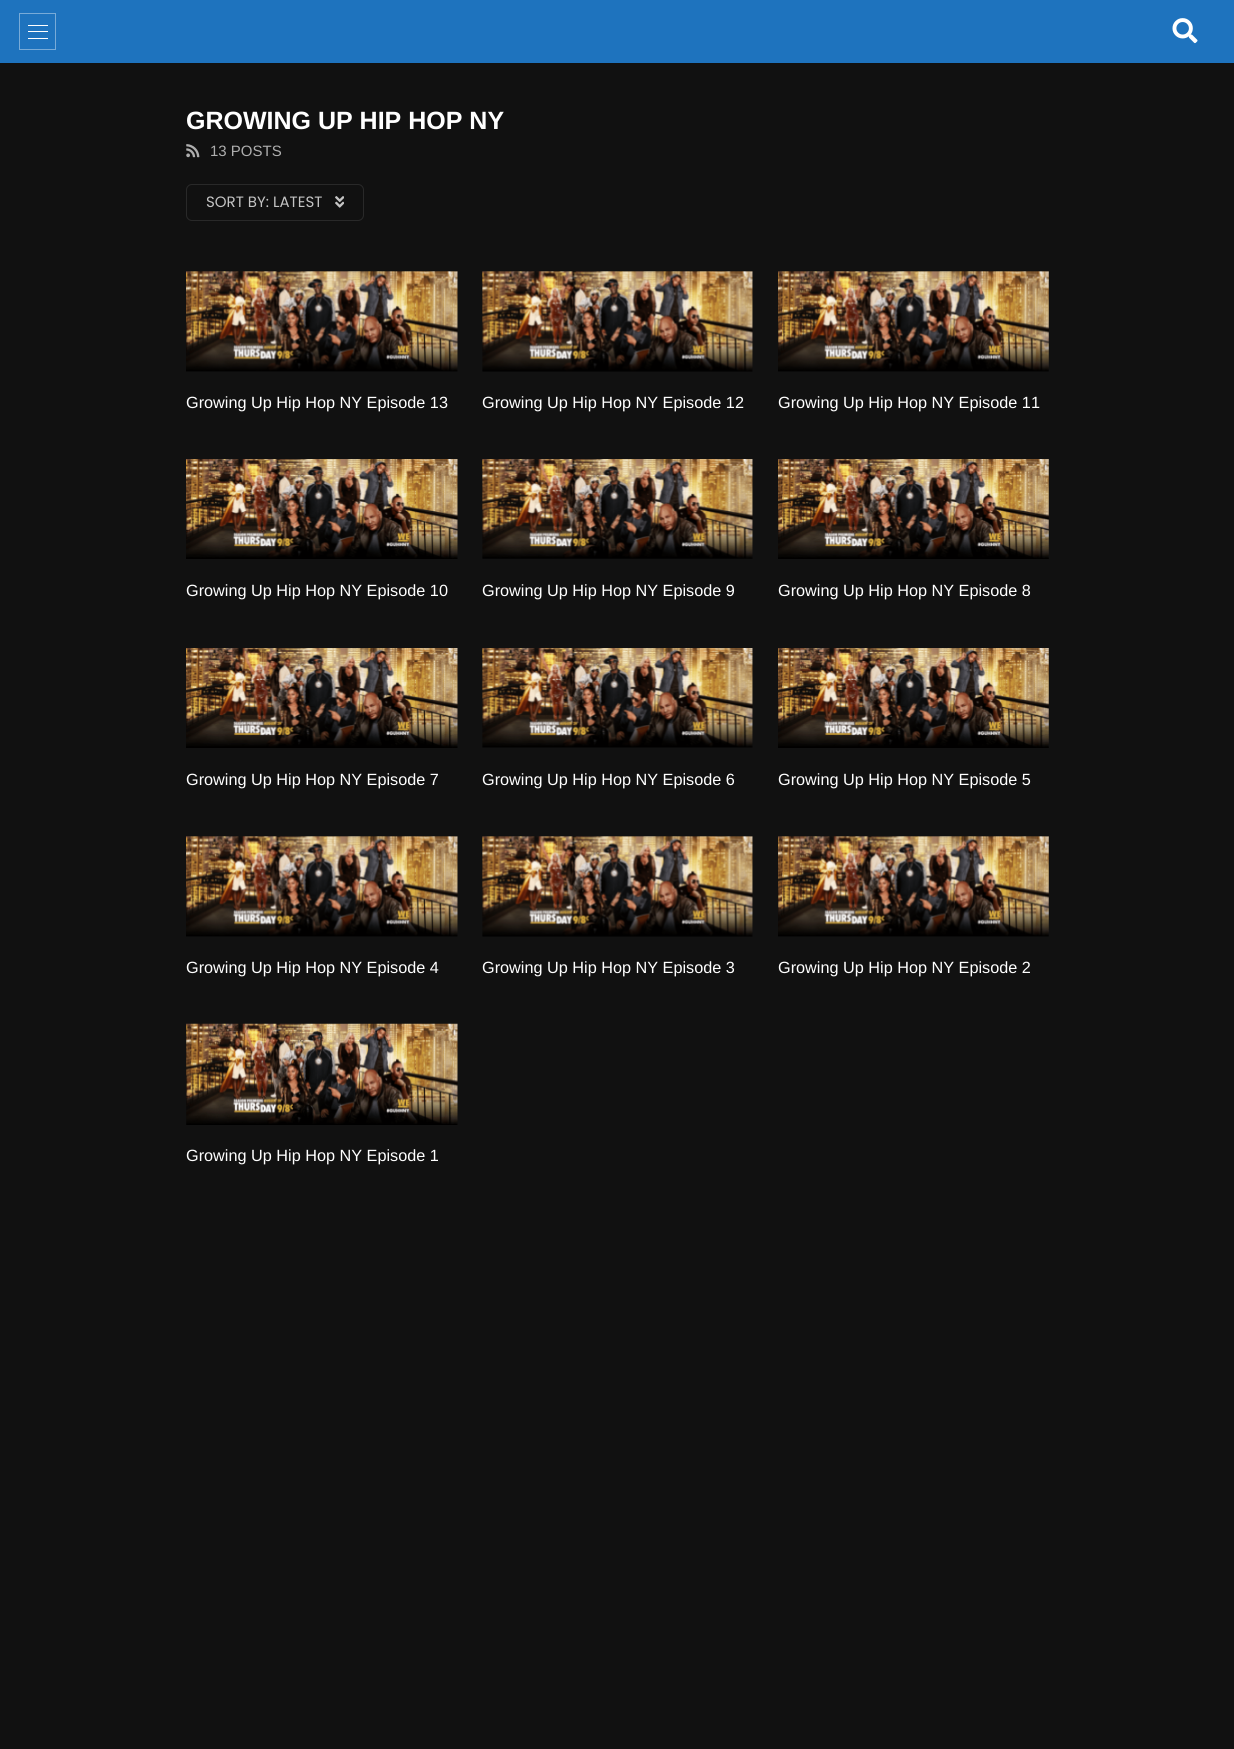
#include <cairo.h>
#include <math.h>
#include <stddef.h>


static void round_rect(cairo_t *cr, double x, double y, double w, double h, double r) {
    cairo_new_sub_path(cr);
    cairo_arc(cr, x + w - r, y + h - r, r, 0, M_PI / 2);
    cairo_arc(cr, x + r, y + h - r, r, M_PI / 2, M_PI);
    cairo_arc(cr, x + r, y + r, r, M_PI, 1.5 * M_PI);
    cairo_arc(cr, x + w - r, y + r, r, 1.5 * M_PI, 2 * M_PI);
    cairo_close_path(cr);
}

static void picture(cairo_t *cr, const char *path, double x, double y, double w, double h) {
    cairo_surface_t *image = cairo_image_surface_create_from_png(path);
    cairo_save(cr);
    cairo_set_source_surface(cr, image, x, y);
    cairo_rectangle(cr, x, y, w, h);
    cairo_fill(cr);
    cairo_restore(cr);
    cairo_surface_destroy(image);
}

int main(void) {
    cairo_surface_t *surface = cairo_image_surface_create(CAIRO_FORMAT_RGB24, 1234, 1749);
    cairo_t *cr = cairo_create(surface);
    cairo_font_options_t *options = cairo_font_options_create();
    cairo_font_options_set_hint_metrics(options, CAIRO_HINT_METRICS_OFF);
    cairo_font_options_set_hint_style(options, CAIRO_HINT_STYLE_NONE);
    cairo_set_font_options(cr, options);
    cairo_set_miter_limit(cr, 4);
    cairo_set_source_rgb(cr, 0.067, 0.067, 0.067);
    cairo_paint(cr);
    cairo_set_source_rgb(cr, 0.118, 0.451, 0.745);
    cairo_rectangle(cr, 0, 0, 1234, 63);
    cairo_fill(cr);
    cairo_rectangle(cr, 19.5, 13.5, 36, 36);
    cairo_set_source_rgb(cr, 0.471, 0.671, 0.847);
    cairo_set_line_width(cr, 1);
    cairo_stroke(cr);
    cairo_set_source_rgb(cr, 1, 1, 1);
    cairo_rectangle(cr, 28, 25, 20, 1);
    cairo_fill(cr);
    cairo_rectangle(cr, 28, 31, 20, 1);
    cairo_fill(cr);
    cairo_rectangle(cr, 28, 38, 20, 1);
    cairo_fill(cr);
    picture(cr, "img1.png", 1172, 18, 26, 26);
    cairo_select_font_face(cr, "Liberation Sans", CAIRO_FONT_SLANT_NORMAL, CAIRO_FONT_WEIGHT_BOLD);
    cairo_set_font_size(cr, 25);
    cairo_move_to(cr, 186, 129);
    cairo_show_text(cr, "GROWING UP HIP HOP NY");
    picture(cr, "img2.png", 186, 144, 14, 14);
    cairo_select_font_face(cr, "Liberation Sans", CAIRO_FONT_SLANT_NORMAL, CAIRO_FONT_WEIGHT_NORMAL);
    cairo_set_font_size(cr, 15);
    cairo_set_source_rgb(cr, 0.682, 0.682, 0.682);
    cairo_move_to(cr, 210, 156);
    cairo_show_text(cr, "13 POSTS");
    round_rect(cr, 186.5, 184.5, 177, 36, 5.5);
    cairo_set_source_rgb(cr, 0.161, 0.161, 0.161);
    cairo_stroke(cr);
    cairo_select_font_face(cr, "Poppins", CAIRO_FONT_SLANT_NORMAL, CAIRO_FONT_WEIGHT_NORMAL);
    cairo_set_source_rgb(cr, 0.769, 0.769, 0.769);
    cairo_move_to(cr, 206, 207);
    cairo_show_text(cr, "SORT BY: LATEST");
    picture(cr, "img3.png", 335, 196, 9, 12);
    picture(cr, "img4.png", 186, 271, 272, 101);
    cairo_select_font_face(cr, "Liberation Sans", CAIRO_FONT_SLANT_NORMAL, CAIRO_FONT_WEIGHT_NORMAL);
    cairo_set_font_size(cr, 16.25);
    cairo_set_source_rgb(cr, 1, 1, 1);
    cairo_move_to(cr, 186, 408);
    cairo_show_text(cr, "Growing Up Hip Hop NY Episode 13");
    picture(cr, "img5.png", 482, 271, 271, 101);
    cairo_move_to(cr, 482, 408);
    cairo_show_text(cr, "Growing Up Hip Hop NY Episode 12");
    picture(cr, "img6.png", 778, 271, 271, 101);
    cairo_move_to(cr, 778, 408);
    cairo_show_text(cr, "Growing Up Hip Hop NY Episode 11");
    picture(cr, "img7.png", 186, 459, 272, 100);
    cairo_move_to(cr, 186, 596);
    cairo_show_text(cr, "Growing Up Hip Hop NY Episode 10");
    picture(cr, "img8.png", 482, 459, 271, 100);
    cairo_move_to(cr, 482, 596);
    cairo_show_text(cr, "Growing Up Hip Hop NY Episode 9");
    picture(cr, "img9.png", 778, 459, 271, 100);
    cairo_move_to(cr, 778, 596);
    cairo_show_text(cr, "Growing Up Hip Hop NY Episode 8");
    picture(cr, "img10.png", 186, 648, 272, 100);
    cairo_move_to(cr, 186, 785);
    cairo_show_text(cr, "Growing Up Hip Hop NY Episode 7");
    picture(cr, "img11.png", 482, 648, 271, 100);
    cairo_move_to(cr, 482, 785);
    cairo_show_text(cr, "Growing Up Hip Hop NY Episode 6");
    picture(cr, "img12.png", 778, 648, 271, 100);
    cairo_move_to(cr, 778, 785);
    cairo_show_text(cr, "Growing Up Hip Hop NY Episode 5");
    picture(cr, "img4.png", 186, 836, 272, 101);
    cairo_move_to(cr, 186, 973);
    cairo_show_text(cr, "Growing Up Hip Hop NY Episode 4");
    picture(cr, "img13.png", 482, 836, 271, 101);
    cairo_move_to(cr, 482, 973);
    cairo_show_text(cr, "Growing Up Hip Hop NY Episode 3");
    picture(cr, "img6.png", 778, 836, 271, 101);
    cairo_move_to(cr, 778, 973);
    cairo_show_text(cr, "Growing Up Hip Hop NY Episode 2");
    picture(cr, "img14.png", 186, 1023, 272, 102);
    cairo_move_to(cr, 186, 1161);
    cairo_show_text(cr, "Growing Up Hip Hop NY Episode 1");
    cairo_surface_write_to_png(surface, "page.png");
    cairo_font_options_destroy(options);
    cairo_destroy(cr);
    cairo_surface_destroy(surface);
    return 0;
}
